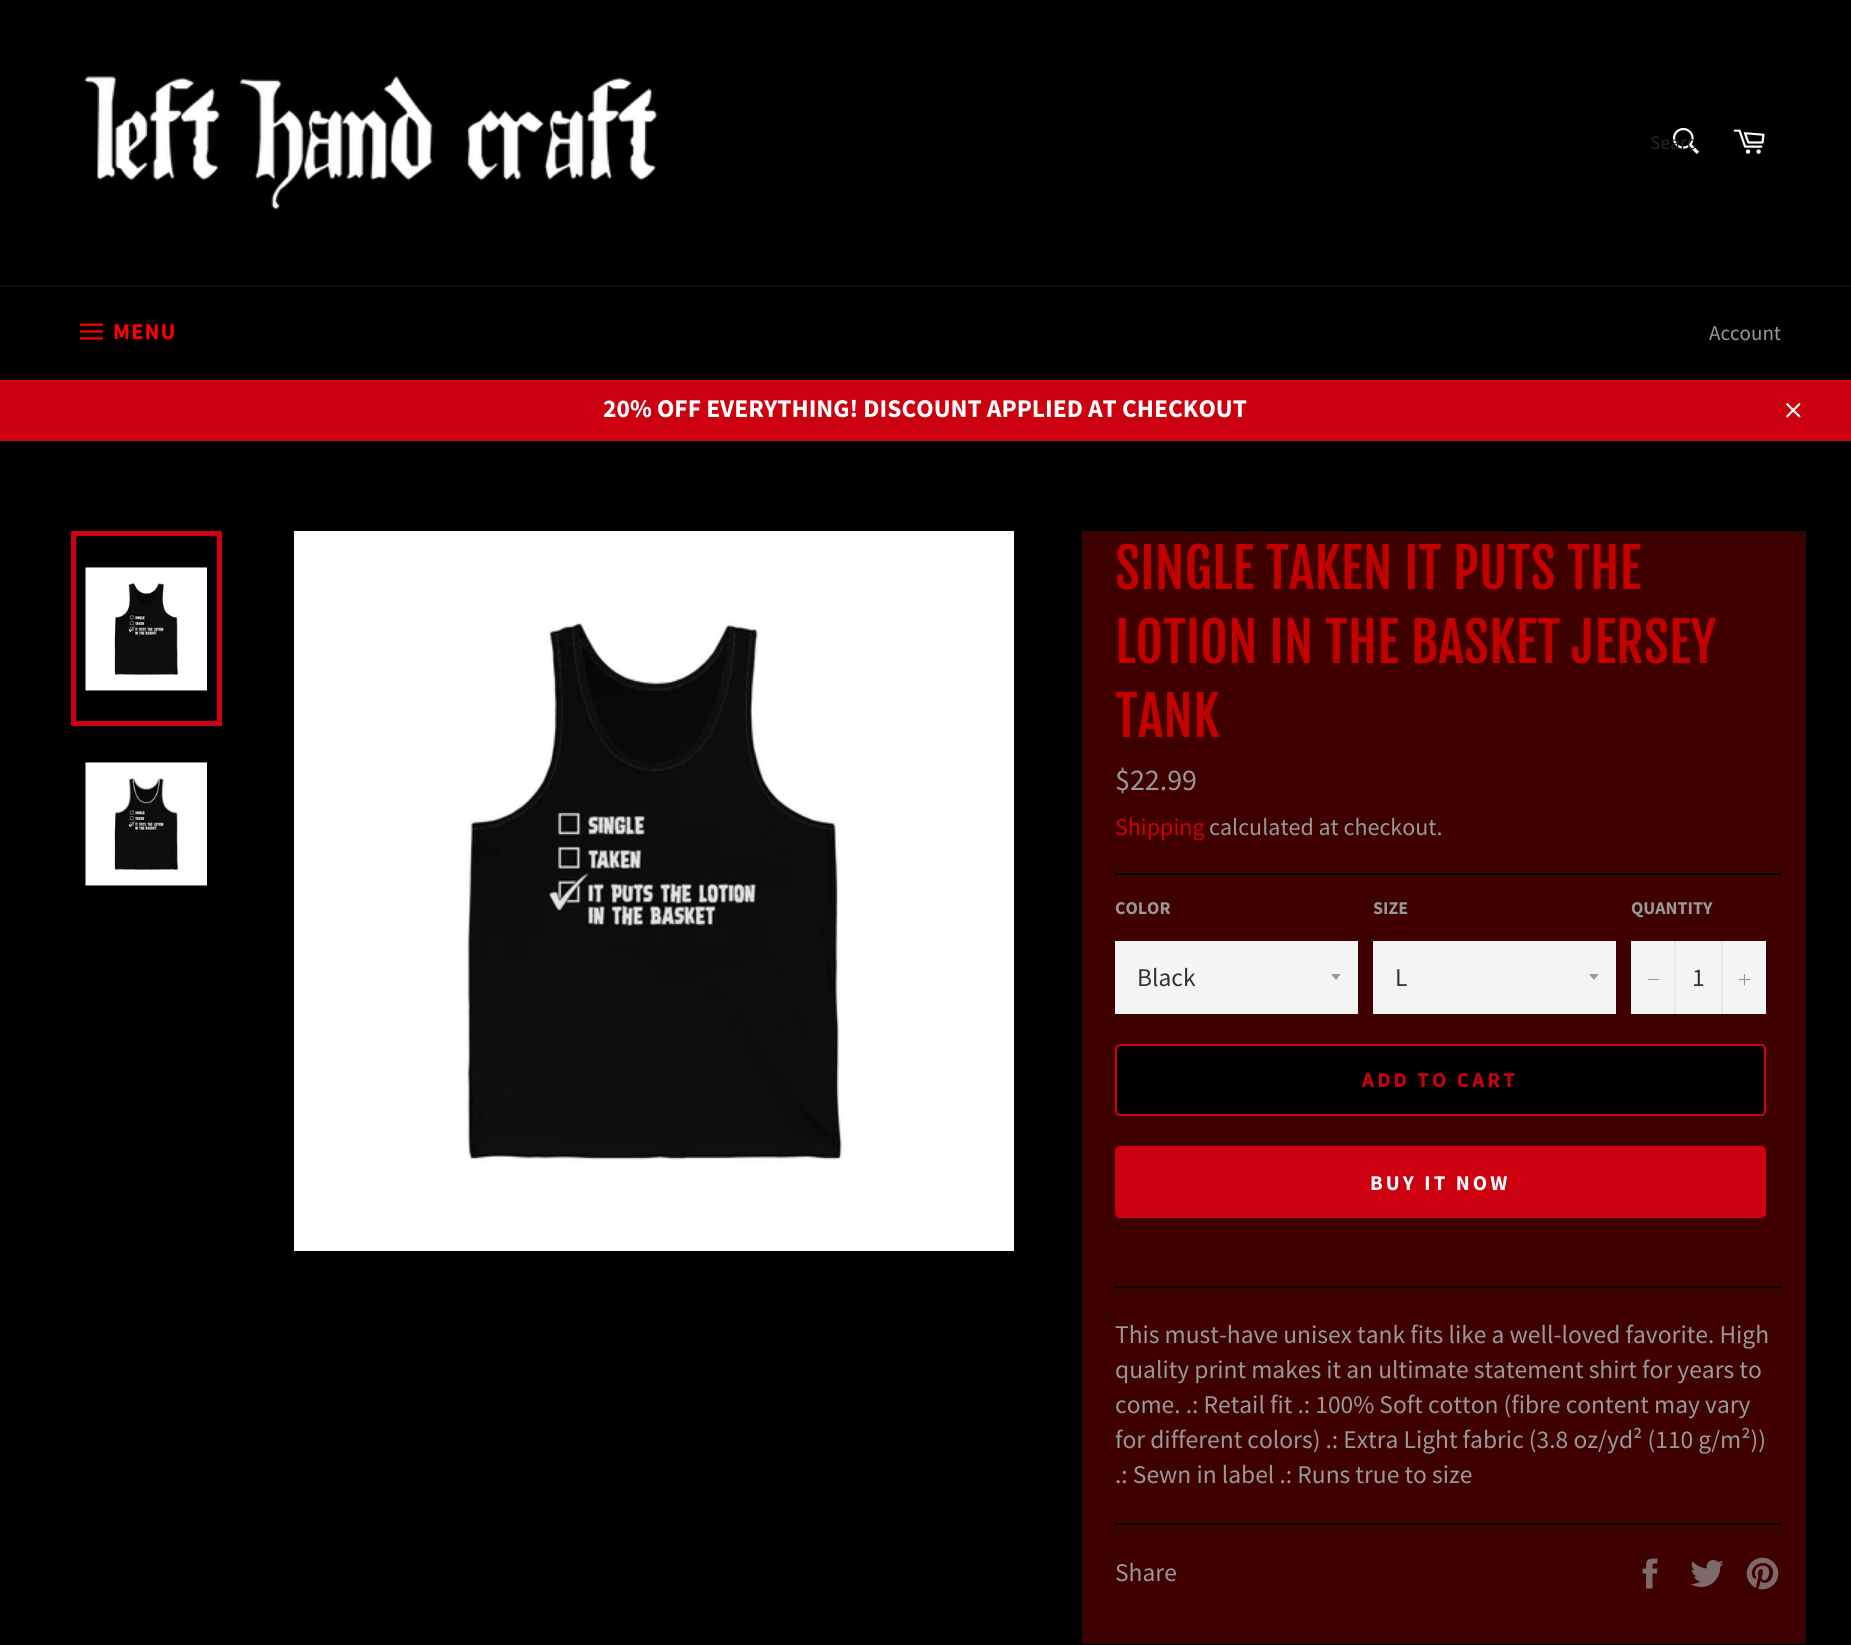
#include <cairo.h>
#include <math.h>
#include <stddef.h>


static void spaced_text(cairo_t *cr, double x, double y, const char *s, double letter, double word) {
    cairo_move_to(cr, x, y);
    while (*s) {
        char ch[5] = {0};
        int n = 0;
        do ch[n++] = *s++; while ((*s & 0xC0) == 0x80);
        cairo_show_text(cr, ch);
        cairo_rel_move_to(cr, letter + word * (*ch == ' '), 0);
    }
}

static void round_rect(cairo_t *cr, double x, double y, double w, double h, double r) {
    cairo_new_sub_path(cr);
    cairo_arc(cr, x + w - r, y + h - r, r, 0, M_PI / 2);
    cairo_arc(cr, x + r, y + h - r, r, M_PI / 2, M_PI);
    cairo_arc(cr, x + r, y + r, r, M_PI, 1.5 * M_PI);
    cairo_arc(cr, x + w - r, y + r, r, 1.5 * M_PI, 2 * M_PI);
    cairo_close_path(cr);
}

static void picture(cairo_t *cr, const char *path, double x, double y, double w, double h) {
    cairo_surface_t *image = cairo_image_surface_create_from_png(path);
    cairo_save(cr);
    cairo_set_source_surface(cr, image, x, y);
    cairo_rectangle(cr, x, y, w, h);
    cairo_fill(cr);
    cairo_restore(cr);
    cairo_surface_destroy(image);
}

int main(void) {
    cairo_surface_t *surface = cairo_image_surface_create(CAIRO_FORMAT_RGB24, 1851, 1645);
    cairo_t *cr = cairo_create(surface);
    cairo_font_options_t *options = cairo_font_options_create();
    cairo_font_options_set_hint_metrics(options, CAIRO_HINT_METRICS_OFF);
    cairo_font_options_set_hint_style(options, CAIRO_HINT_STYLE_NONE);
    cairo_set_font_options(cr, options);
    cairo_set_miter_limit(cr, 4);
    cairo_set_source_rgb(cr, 0, 0, 0);
    cairo_paint(cr);
    picture(cr, "img1.png", 84, 76, 574, 133);
    picture(cr, "img2.png", 1672, 127, 27, 27);
    cairo_select_font_face(cr, "Source Sans Pro", CAIRO_FONT_SLANT_NORMAL, CAIRO_FONT_WEIGHT_NORMAL);
    cairo_set_font_size(cr, 19.5);
    cairo_set_source_rgb(cr, 0.145, 0.145, 0.145);
    cairo_move_to(cr, 1650, 149);
    cairo_show_text(cr, "Searc");
    picture(cr, "img3.png", 1733, 129, 32, 25);
    cairo_set_source_rgb(cr, 0.051, 0.051, 0.051);
    cairo_rectangle(cr, 0, 285, 1851, 2);
    cairo_fill(cr);
    picture(cr, "img4.png", 80, 323, 23, 17);
    cairo_select_font_face(cr, "Source Sans Pro", CAIRO_FONT_SLANT_NORMAL, CAIRO_FONT_WEIGHT_BOLD);
    cairo_set_font_size(cr, 22.5);
    cairo_set_source_rgb(cr, 1, 0, 0);
    spaced_text(cr, 113, 339, "MENU", 1, 0);
    cairo_select_font_face(cr, "Source Sans Pro", CAIRO_FONT_SLANT_NORMAL, CAIRO_FONT_WEIGHT_NORMAL);
    cairo_set_font_size(cr, 21);
    cairo_set_source_rgb(cr, 0.596, 0.596, 0.596);
    cairo_move_to(cr, 1709, 340);
    cairo_show_text(cr, "Account");
    cairo_set_source_rgb(cr, 0.8, 0, 0.055);
    cairo_rectangle(cr, 0, 380, 1851, 61);
    cairo_fill(cr);
    cairo_select_font_face(cr, "Source Sans Pro", CAIRO_FONT_SLANT_NORMAL, CAIRO_FONT_WEIGHT_BOLD);
    cairo_set_font_size(cr, 25.5);
    cairo_set_source_rgb(cr, 1, 1, 1);
    cairo_move_to(cr, 603, 417);
    cairo_show_text(cr, "20% OFF EVERYTHING! DISCOUNT APPLIED AT CHECKOUT");
    picture(cr, "img5.png", 1785, 402, 16, 16);
    picture(cr, "img6.png", 85, 567, 122, 124);
    cairo_rectangle(cr, 73.5, 533.5, 146, 190);
    cairo_set_source_rgb(cr, 0.8, 0, 0.055);
    cairo_set_line_width(cr, 5);
    cairo_stroke(cr);
    picture(cr, "img7.png", 85, 762, 122, 124);
    picture(cr, "img8.png", 294, 531, 720, 720);
    cairo_set_source_rgb(cr, 0.247, 0, 0);
    cairo_rectangle(cr, 1083, 532, 722, 1111);
    cairo_fill_preserve(cr);
    cairo_set_source_rgb(cr, 0.165, 0.039, 0.039);
    cairo_set_line_width(cr, 2);
    cairo_stroke(cr);
    cairo_select_font_face(cr, "Fjalla One", CAIRO_FONT_SLANT_NORMAL, CAIRO_FONT_WEIGHT_NORMAL);
    cairo_set_font_size(cr, 54);
    cairo_set_source_rgb(cr, 0.765, 0, 0);
    cairo_move_to(cr, 1115, 589);
    cairo_show_text(cr, "SINGLE TAKEN IT PUTS THE");
    cairo_move_to(cr, 1115, 663);
    cairo_show_text(cr, "LOTION IN THE BASKET JERSEY");
    cairo_move_to(cr, 1115, 737);
    cairo_show_text(cr, "TANK");
    cairo_select_font_face(cr, "Source Sans Pro", CAIRO_FONT_SLANT_NORMAL, CAIRO_FONT_WEIGHT_NORMAL);
    cairo_set_font_size(cr, 30);
    cairo_set_source_rgb(cr, 0.596, 0.596, 0.596);
    cairo_move_to(cr, 1115, 790);
    cairo_show_text(cr, "$22.99");
    cairo_set_font_size(cr, 24);
    cairo_set_source_rgb(cr, 0.8, 0, 0.055);
    cairo_move_to(cr, 1115, 835);
    cairo_show_text(cr, "Shipping");
    cairo_set_source_rgb(cr, 0.596, 0.596, 0.596);
    cairo_move_to(cr, 1209, 835);
    cairo_show_text(cr, "calculated at checkout.");
    cairo_set_source_rgb(cr, 0, 0, 0);
    cairo_rectangle(cr, 1115, 873, 666, 2);
    cairo_fill(cr);
    cairo_select_font_face(cr, "Source Sans Pro", CAIRO_FONT_SLANT_NORMAL, CAIRO_FONT_WEIGHT_BOLD);
    cairo_set_font_size(cr, 18);
    cairo_set_source_rgb(cr, 0.596, 0.596, 0.596);
    cairo_move_to(cr, 1115, 914);
    cairo_show_text(cr, "COLOR");
    cairo_set_source_rgb(cr, 0.957, 0.957, 0.957);
    cairo_rectangle(cr, 1115, 941, 243, 73);
    cairo_fill(cr);
    cairo_save(cr);
    cairo_rectangle(cr, 1331, 974, 12, 7);
    cairo_clip(cr);
    cairo_set_source_rgb(cr, 0.596, 0.596, 0.596);
    cairo_new_path(cr);
    cairo_move_to(cr, 1330.5, 973.5);
    cairo_line_to(cr, 1336, 980);
    cairo_line_to(cr, 1341, 973.5);
    cairo_close_path(cr);
    cairo_fill(cr);
    cairo_restore(cr);
    cairo_select_font_face(cr, "Source Sans Pro", CAIRO_FONT_SLANT_NORMAL, CAIRO_FONT_WEIGHT_NORMAL);
    cairo_set_font_size(cr, 25.5);
    cairo_set_source_rgb(cr, 0.2, 0.2, 0.2);
    cairo_move_to(cr, 1137, 986);
    cairo_show_text(cr, "Black");
    cairo_select_font_face(cr, "Source Sans Pro", CAIRO_FONT_SLANT_NORMAL, CAIRO_FONT_WEIGHT_BOLD);
    cairo_set_font_size(cr, 18);
    cairo_set_source_rgb(cr, 0.596, 0.596, 0.596);
    cairo_move_to(cr, 1373, 914);
    cairo_show_text(cr, "SIZE");
    cairo_set_source_rgb(cr, 0.957, 0.957, 0.957);
    cairo_rectangle(cr, 1373, 941, 243, 73);
    cairo_fill(cr);
    cairo_save(cr);
    cairo_rectangle(cr, 1589, 974, 12, 7);
    cairo_clip(cr);
    cairo_set_source_rgb(cr, 0.596, 0.596, 0.596);
    cairo_new_path(cr);
    cairo_move_to(cr, 1588.5, 973.5);
    cairo_line_to(cr, 1594, 980);
    cairo_line_to(cr, 1599, 973.5);
    cairo_close_path(cr);
    cairo_fill(cr);
    cairo_restore(cr);
    cairo_select_font_face(cr, "Source Sans Pro", CAIRO_FONT_SLANT_NORMAL, CAIRO_FONT_WEIGHT_NORMAL);
    cairo_set_font_size(cr, 25.5);
    cairo_set_source_rgb(cr, 0.2, 0.2, 0.2);
    cairo_move_to(cr, 1395, 986);
    cairo_show_text(cr, "L");
    cairo_select_font_face(cr, "Source Sans Pro", CAIRO_FONT_SLANT_NORMAL, CAIRO_FONT_WEIGHT_BOLD);
    cairo_set_font_size(cr, 18);
    cairo_set_source_rgb(cr, 0.596, 0.596, 0.596);
    cairo_move_to(cr, 1631, 914);
    cairo_show_text(cr, "QUANTITY");
    cairo_set_source_rgb(cr, 0.957, 0.957, 0.957);
    cairo_rectangle(cr, 1631, 941, 135, 73);
    cairo_fill(cr);
    cairo_set_source_rgb(cr, 0.906, 0.906, 0.906);
    cairo_rectangle(cr, 1674, 941, 2, 73);
    cairo_fill(cr);
    cairo_set_source_rgb(cr, 0.596, 0.596, 0.596);
    cairo_rectangle(cr, 1648, 979, 11, 1);
    cairo_fill(cr);
    cairo_select_font_face(cr, "Source Sans Pro", CAIRO_FONT_SLANT_NORMAL, CAIRO_FONT_WEIGHT_NORMAL);
    cairo_set_font_size(cr, 25.5);
    cairo_set_source_rgb(cr, 0.2, 0.2, 0.2);
    cairo_move_to(cr, 1692, 986);
    cairo_show_text(cr, "1");
    cairo_set_source_rgb(cr, 0.906, 0.906, 0.906);
    cairo_rectangle(cr, 1721, 941, 2, 73);
    cairo_fill(cr);
    picture(cr, "img9.png", 1739, 974, 12, 12);
    cairo_set_source_rgb(cr, 0, 0, 0);
    round_rect(cr, 1116, 1045, 649, 70, 4);
    cairo_fill_preserve(cr);
    cairo_set_source_rgb(cr, 0.8, 0, 0.055);
    cairo_stroke(cr);
    cairo_select_font_face(cr, "Source Sans Pro", CAIRO_FONT_SLANT_NORMAL, CAIRO_FONT_WEIGHT_BOLD);
    cairo_set_font_size(cr, 21);
    spaced_text(cr, 1362, 1087, "ADD TO CART", 3.1, 0);
    round_rect(cr, 1115, 1146, 651, 72, 5);
    cairo_fill(cr);
    cairo_set_source_rgb(cr, 1, 1, 1);
    spaced_text(cr, 1370, 1190, "BUY IT NOW", 3.1, 0);
    cairo_set_source_rgb(cr, 0, 0, 0);
    cairo_rectangle(cr, 1115, 1286, 666, 2);
    cairo_fill(cr);
    cairo_select_font_face(cr, "Source Sans Pro", CAIRO_FONT_SLANT_NORMAL, CAIRO_FONT_WEIGHT_NORMAL);
    cairo_set_font_size(cr, 25.5);
    cairo_set_source_rgb(cr, 0.596, 0.596, 0.596);
    cairo_move_to(cr, 1115, 1343);
    cairo_show_text(cr, "This must-have unisex tank fits like a well-loved favorite. High");
    cairo_move_to(cr, 1115, 1378);
    cairo_show_text(cr, "quality print makes it an ultimate statement shirt for years to");
    cairo_move_to(cr, 1115, 1413);
    cairo_show_text(cr, "come. .: Retail fit .: 100% Soft cotton (fibre content may vary");
    cairo_move_to(cr, 1115, 1448);
    cairo_show_text(cr, "for different colors) .: Extra Light fabric (3.8 oz/yd² (110 g/m²))");
    cairo_move_to(cr, 1115, 1483);
    cairo_show_text(cr, ".: Sewn in label .: Runs true to size");
    cairo_set_source_rgb(cr, 0, 0, 0);
    cairo_rectangle(cr, 1115, 1523, 666, 2);
    cairo_fill(cr);
    cairo_set_source_rgb(cr, 0.596, 0.596, 0.596);
    cairo_move_to(cr, 1115, 1581);
    cairo_show_text(cr, "Share");
    picture(cr, "img10.png", 1642, 1558, 16, 31);
    picture(cr, "img11.png", 1690, 1560, 34, 27);
    picture(cr, "img12.png", 1746, 1557, 33, 33);
    cairo_surface_write_to_png(surface, "page.png");
    cairo_font_options_destroy(options);
    cairo_destroy(cr);
    cairo_surface_destroy(surface);
    return 0;
}
